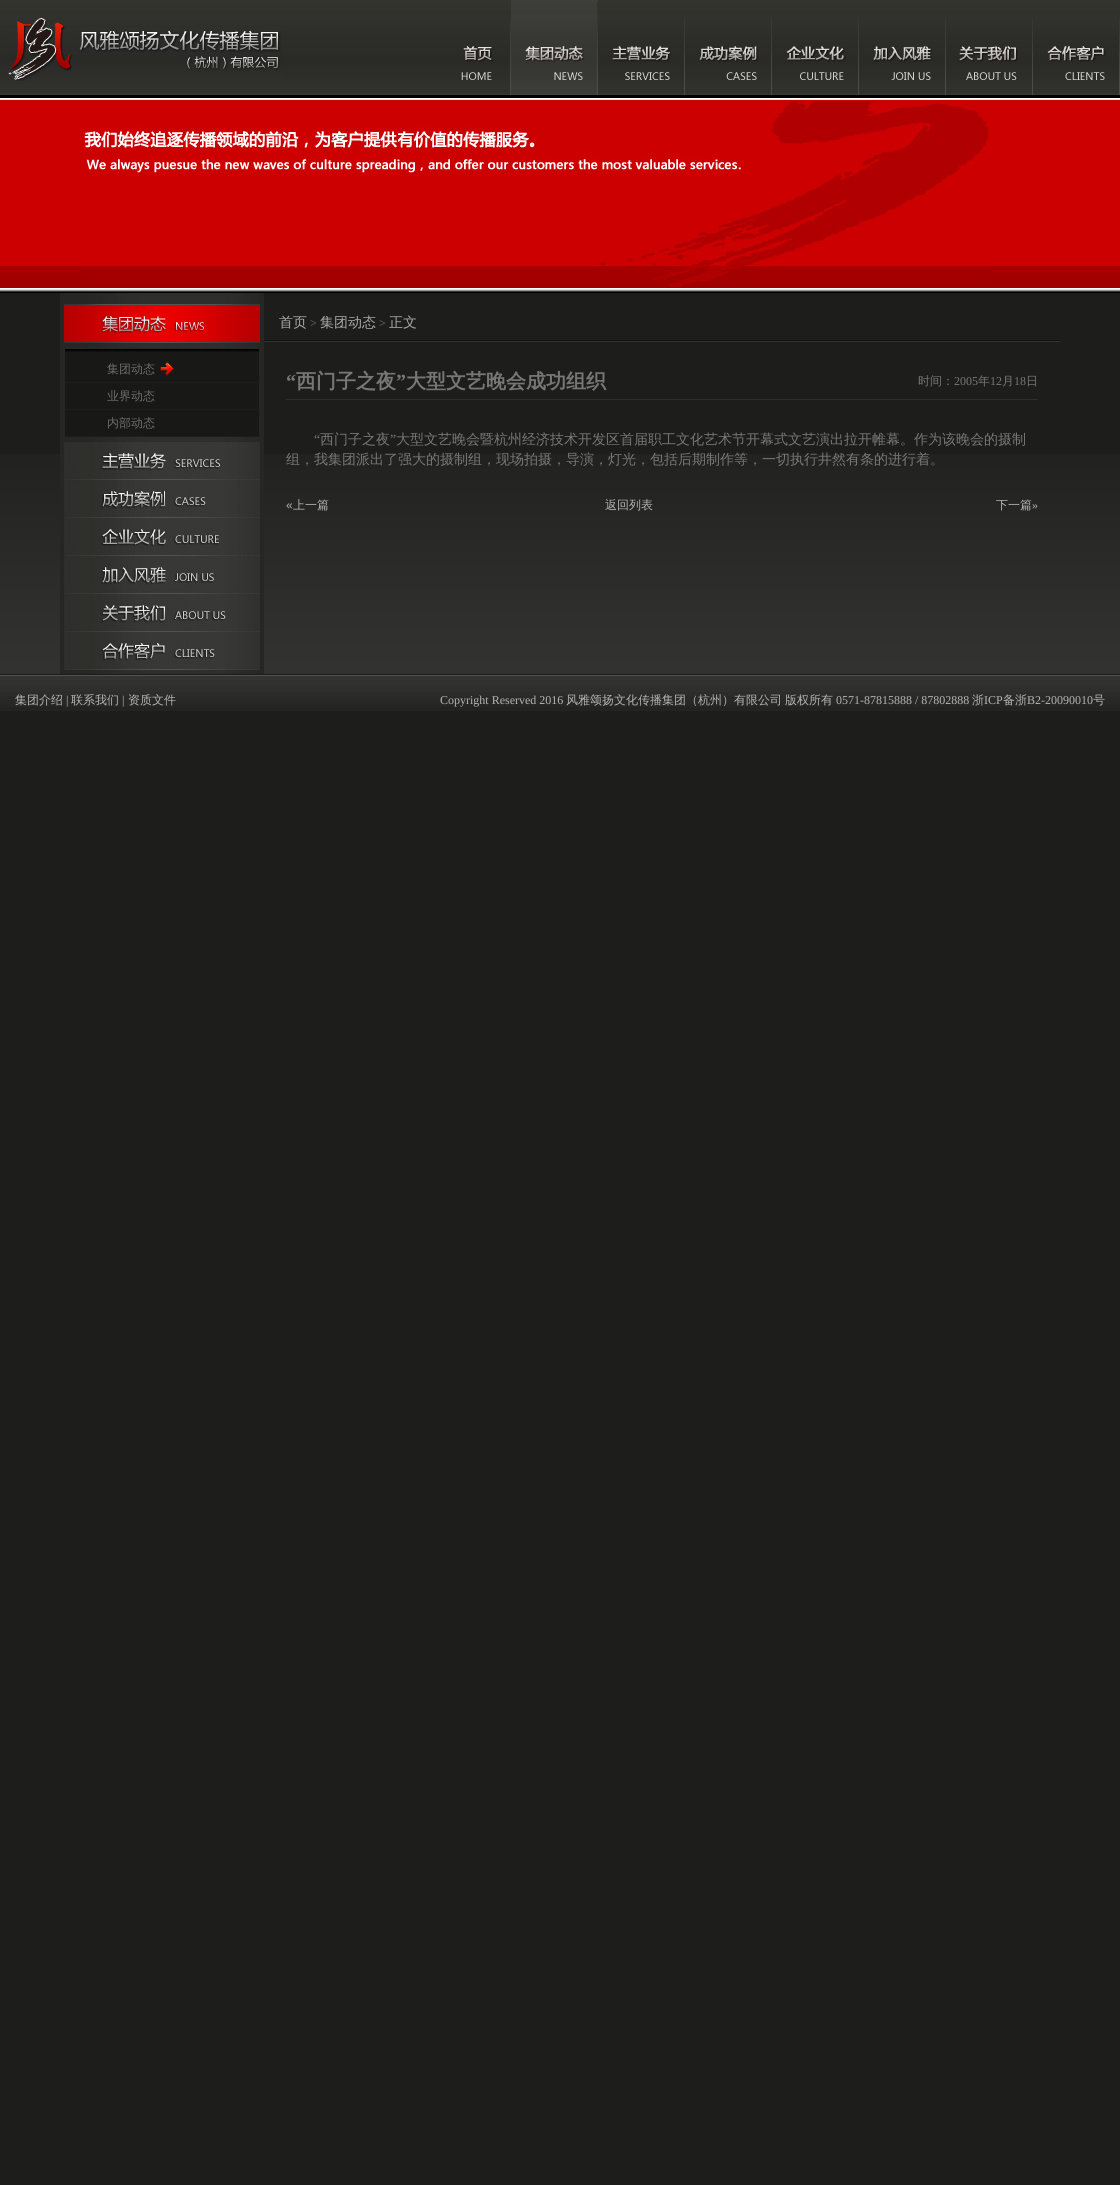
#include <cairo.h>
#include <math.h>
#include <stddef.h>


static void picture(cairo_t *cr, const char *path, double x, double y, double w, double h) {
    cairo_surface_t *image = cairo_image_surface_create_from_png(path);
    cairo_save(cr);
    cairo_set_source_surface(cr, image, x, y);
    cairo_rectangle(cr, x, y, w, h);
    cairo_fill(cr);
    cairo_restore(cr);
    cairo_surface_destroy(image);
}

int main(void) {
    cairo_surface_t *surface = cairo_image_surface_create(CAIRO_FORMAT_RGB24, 1120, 2185);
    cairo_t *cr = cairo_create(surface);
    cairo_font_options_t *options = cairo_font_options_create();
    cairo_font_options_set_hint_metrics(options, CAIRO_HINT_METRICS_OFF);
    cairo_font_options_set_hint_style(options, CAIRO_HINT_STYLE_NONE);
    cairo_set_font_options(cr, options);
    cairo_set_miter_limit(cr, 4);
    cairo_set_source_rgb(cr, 0.114, 0.114, 0.106);
    cairo_paint(cr);
    picture(cr, "img1.png", 0, 0, 1120, 95);
    cairo_set_source_rgb(cr, 0, 0, 0);
    cairo_rectangle(cr, 0, 95, 1120, 3);
    cairo_fill(cr);
    picture(cr, "img2.png", 7, 18, 274, 63);
    picture(cr, "img3.png", 461, 17, 50, 78);
    picture(cr, "img4.png", 511, 0, 87, 95);
    picture(cr, "img5.png", 612, 17, 73, 78);
    picture(cr, "img6.png", 699, 17, 73, 78);
    picture(cr, "img7.png", 786, 17, 73, 78);
    picture(cr, "img8.png", 873, 17, 73, 78);
    picture(cr, "img9.png", 959, 17, 74, 78);
    picture(cr, "img10.png", 1047, 17, 73, 78);
    picture(cr, "img11.png", 0, 98, 1120, 195);
    picture(cr, "img12.png", 84, 100, 906, 187);
    picture(cr, "img13.png", 0, 454, 1120, 220);
    picture(cr, "img14.png", 60, 293, 204, 381);
    picture(cr, "img15.png", 64, 304, 196, 1);
    picture(cr, "img16.png", 64, 305, 196, 38);
    cairo_set_source_rgb(cr, 0.094, 0.094, 0.086);
    cairo_rectangle(cr, 65, 352, 194, 84);
    cairo_fill(cr);
    picture(cr, "img17.png", 65, 348, 194, 4);
    picture(cr, "img18.png", 160, 362, 14, 14);
    cairo_set_source_rgb(cr, 0.114, 0.114, 0.106);
    cairo_rectangle(cr, 65, 382, 194, 1);
    cairo_fill(cr);
    cairo_select_font_face(cr, "WenQuanYi Zen Hei Medium", CAIRO_FONT_SLANT_NORMAL, CAIRO_FONT_WEIGHT_NORMAL);
    cairo_set_font_size(cr, 12);
    cairo_set_source_rgb(cr, 0.427, 0.427, 0.427);
    cairo_move_to(cr, 107, 373);
    cairo_show_text(cr, "集团动态");
    cairo_set_source_rgb(cr, 0.114, 0.114, 0.106);
    cairo_rectangle(cr, 65, 409, 194, 1);
    cairo_fill(cr);
    cairo_set_source_rgb(cr, 0.427, 0.427, 0.427);
    cairo_move_to(cr, 107, 400);
    cairo_show_text(cr, "业界动态");
    cairo_set_source_rgb(cr, 0.114, 0.114, 0.106);
    cairo_rectangle(cr, 65, 436, 194, 1);
    cairo_fill(cr);
    cairo_set_source_rgb(cr, 0.427, 0.427, 0.427);
    cairo_move_to(cr, 107, 427);
    cairo_show_text(cr, "内部动态");
    picture(cr, "img19.png", 64, 442, 196, 38);
    picture(cr, "img20.png", 64, 480, 196, 38);
    picture(cr, "img21.png", 64, 518, 196, 38);
    picture(cr, "img22.png", 64, 556, 196, 38);
    picture(cr, "img23.png", 64, 594, 196, 38);
    picture(cr, "img24.png", 64, 632, 196, 38);
    cairo_set_source_rgb(cr, 0.067, 0.067, 0.067);
    cairo_rectangle(cr, 264, 340, 796, 1);
    cairo_fill(cr);
    cairo_set_font_size(cr, 14);
    cairo_set_source_rgb(cr, 0.667, 0.667, 0.667);
    cairo_move_to(cr, 279, 327);
    cairo_show_text(cr, "首页");
    cairo_select_font_face(cr, "Liberation Serif", CAIRO_FONT_SLANT_NORMAL, CAIRO_FONT_WEIGHT_NORMAL);
    cairo_set_font_size(cr, 12);
    cairo_set_source_rgb(cr, 0.467, 0.467, 0.467);
    cairo_move_to(cr, 310, 327);
    cairo_show_text(cr, ">");
    cairo_select_font_face(cr, "WenQuanYi Zen Hei Medium", CAIRO_FONT_SLANT_NORMAL, CAIRO_FONT_WEIGHT_NORMAL);
    cairo_set_font_size(cr, 14);
    cairo_set_source_rgb(cr, 0.667, 0.667, 0.667);
    cairo_move_to(cr, 320, 327);
    cairo_show_text(cr, "集团动态");
    cairo_select_font_face(cr, "Liberation Serif", CAIRO_FONT_SLANT_NORMAL, CAIRO_FONT_WEIGHT_NORMAL);
    cairo_set_font_size(cr, 12);
    cairo_set_source_rgb(cr, 0.467, 0.467, 0.467);
    cairo_move_to(cr, 379, 327);
    cairo_show_text(cr, ">");
    cairo_select_font_face(cr, "WenQuanYi Zen Hei Medium", CAIRO_FONT_SLANT_NORMAL, CAIRO_FONT_WEIGHT_NORMAL);
    cairo_set_font_size(cr, 14);
    cairo_set_source_rgb(cr, 0.667, 0.667, 0.667);
    cairo_move_to(cr, 389, 327);
    cairo_show_text(cr, "正文");
    cairo_set_source_rgb(cr, 0.2, 0.2, 0.192);
    cairo_rectangle(cr, 264, 341, 796, 1);
    cairo_fill(cr);
    cairo_set_source_rgb(cr, 0.18, 0.18, 0.18);
    cairo_rectangle(cr, 286, 399, 752, 1);
    cairo_fill(cr);
    cairo_select_font_face(cr, "Liberation Serif", CAIRO_FONT_SLANT_NORMAL, CAIRO_FONT_WEIGHT_BOLD);
    cairo_set_font_size(cr, 20);
    cairo_set_source_rgb(cr, 0.467, 0.467, 0.467);
    cairo_move_to(cr, 286, 388);
    cairo_show_text(cr, "“");
    cairo_select_font_face(cr, "WenQuanYi Zen Hei", CAIRO_FONT_SLANT_NORMAL, CAIRO_FONT_WEIGHT_BOLD);
    cairo_move_to(cr, 296, 388);
    cairo_show_text(cr, "西门子之夜");
    cairo_select_font_face(cr, "Liberation Serif", CAIRO_FONT_SLANT_NORMAL, CAIRO_FONT_WEIGHT_BOLD);
    cairo_move_to(cr, 396, 388);
    cairo_show_text(cr, "”");
    cairo_select_font_face(cr, "WenQuanYi Zen Hei", CAIRO_FONT_SLANT_NORMAL, CAIRO_FONT_WEIGHT_BOLD);
    cairo_move_to(cr, 406, 388);
    cairo_show_text(cr, "大型文艺晚会成功组织");
    cairo_select_font_face(cr, "WenQuanYi Zen Hei Medium", CAIRO_FONT_SLANT_NORMAL, CAIRO_FONT_WEIGHT_NORMAL);
    cairo_set_font_size(cr, 12);
    cairo_move_to(cr, 918, 385);
    cairo_show_text(cr, "时间：");
    cairo_select_font_face(cr, "Liberation Serif", CAIRO_FONT_SLANT_NORMAL, CAIRO_FONT_WEIGHT_NORMAL);
    cairo_move_to(cr, 954, 385);
    cairo_show_text(cr, "2005");
    cairo_select_font_face(cr, "WenQuanYi Zen Hei Medium", CAIRO_FONT_SLANT_NORMAL, CAIRO_FONT_WEIGHT_NORMAL);
    cairo_move_to(cr, 978, 385);
    cairo_show_text(cr, "年");
    cairo_select_font_face(cr, "Liberation Serif", CAIRO_FONT_SLANT_NORMAL, CAIRO_FONT_WEIGHT_NORMAL);
    cairo_move_to(cr, 990, 385);
    cairo_show_text(cr, "12");
    cairo_select_font_face(cr, "WenQuanYi Zen Hei Medium", CAIRO_FONT_SLANT_NORMAL, CAIRO_FONT_WEIGHT_NORMAL);
    cairo_move_to(cr, 1002, 385);
    cairo_show_text(cr, "月");
    cairo_select_font_face(cr, "Liberation Serif", CAIRO_FONT_SLANT_NORMAL, CAIRO_FONT_WEIGHT_NORMAL);
    cairo_move_to(cr, 1014, 385);
    cairo_show_text(cr, "18");
    cairo_select_font_face(cr, "WenQuanYi Zen Hei Medium", CAIRO_FONT_SLANT_NORMAL, CAIRO_FONT_WEIGHT_NORMAL);
    cairo_move_to(cr, 1026, 385);
    cairo_show_text(cr, "日");
    cairo_select_font_face(cr, "Liberation Serif", CAIRO_FONT_SLANT_NORMAL, CAIRO_FONT_WEIGHT_NORMAL);
    cairo_set_font_size(cr, 14);
    cairo_move_to(cr, 314, 444);
    cairo_show_text(cr, "“");
    cairo_select_font_face(cr, "WenQuanYi Zen Hei Medium", CAIRO_FONT_SLANT_NORMAL, CAIRO_FONT_WEIGHT_NORMAL);
    cairo_move_to(cr, 320, 444);
    cairo_show_text(cr, "西门子之夜");
    cairo_select_font_face(cr, "Liberation Serif", CAIRO_FONT_SLANT_NORMAL, CAIRO_FONT_WEIGHT_NORMAL);
    cairo_move_to(cr, 390, 444);
    cairo_show_text(cr, "”");
    cairo_select_font_face(cr, "WenQuanYi Zen Hei Medium", CAIRO_FONT_SLANT_NORMAL, CAIRO_FONT_WEIGHT_NORMAL);
    cairo_move_to(cr, 396, 444);
    cairo_show_text(cr, "大型文艺晚会暨杭州经济技术开发区首届职工文化艺术节开幕式文艺演出拉开帷幕。作为该晚会的摄制");
    cairo_move_to(cr, 286, 464);
    cairo_show_text(cr, "组，我集团派出了强大的摄制组，现场拍摄，导演，灯光，包括后期制作等，一切执行井然有条的进行着。");
    cairo_select_font_face(cr, "Liberation Sans", CAIRO_FONT_SLANT_NORMAL, CAIRO_FONT_WEIGHT_NORMAL);
    cairo_set_font_size(cr, 12);
    cairo_set_source_rgb(cr, 0.706, 0.706, 0.706);
    cairo_move_to(cr, 286, 509);
    cairo_show_text(cr, "«");
    cairo_select_font_face(cr, "WenQuanYi Zen Hei Medium", CAIRO_FONT_SLANT_NORMAL, CAIRO_FONT_WEIGHT_NORMAL);
    cairo_move_to(cr, 293, 509);
    cairo_show_text(cr, "上一篇");
    cairo_move_to(cr, 605, 509);
    cairo_show_text(cr, "返回列表");
    cairo_move_to(cr, 996, 509);
    cairo_show_text(cr, "下一篇");
    cairo_select_font_face(cr, "Liberation Serif", CAIRO_FONT_SLANT_NORMAL, CAIRO_FONT_WEIGHT_NORMAL);
    cairo_move_to(cr, 1032, 509);
    cairo_show_text(cr, "»");
    picture(cr, "img25.png", 0, 675, 1120, 36);
    cairo_select_font_face(cr, "WenQuanYi Zen Hei Medium", CAIRO_FONT_SLANT_NORMAL, CAIRO_FONT_WEIGHT_NORMAL);
    cairo_move_to(cr, 15, 704);
    cairo_show_text(cr, "集团介绍");
    cairo_select_font_face(cr, "Liberation Serif", CAIRO_FONT_SLANT_NORMAL, CAIRO_FONT_WEIGHT_NORMAL);
    cairo_move_to(cr, 66, 704);
    cairo_show_text(cr, "|");
    cairo_select_font_face(cr, "WenQuanYi Zen Hei Medium", CAIRO_FONT_SLANT_NORMAL, CAIRO_FONT_WEIGHT_NORMAL);
    cairo_move_to(cr, 71, 704);
    cairo_show_text(cr, "联系我们");
    cairo_select_font_face(cr, "Liberation Serif", CAIRO_FONT_SLANT_NORMAL, CAIRO_FONT_WEIGHT_NORMAL);
    cairo_move_to(cr, 122, 704);
    cairo_show_text(cr, "|");
    cairo_select_font_face(cr, "WenQuanYi Zen Hei Medium", CAIRO_FONT_SLANT_NORMAL, CAIRO_FONT_WEIGHT_NORMAL);
    cairo_move_to(cr, 128, 704);
    cairo_show_text(cr, "资质文件");
    cairo_select_font_face(cr, "Liberation Serif", CAIRO_FONT_SLANT_NORMAL, CAIRO_FONT_WEIGHT_NORMAL);
    cairo_move_to(cr, 440, 704);
    cairo_show_text(cr, "Copyright Reserved 2016");
    cairo_select_font_face(cr, "WenQuanYi Zen Hei Medium", CAIRO_FONT_SLANT_NORMAL, CAIRO_FONT_WEIGHT_NORMAL);
    cairo_move_to(cr, 566, 704);
    cairo_show_text(cr, "风雅颂扬文化传播集团（杭州）有限公司");
    cairo_move_to(cr, 785, 704);
    cairo_show_text(cr, "版权所有");
    cairo_select_font_face(cr, "Liberation Serif", CAIRO_FONT_SLANT_NORMAL, CAIRO_FONT_WEIGHT_NORMAL);
    cairo_move_to(cr, 836, 704);
    cairo_show_text(cr, "0571-87815888 / 87802888");
    cairo_select_font_face(cr, "WenQuanYi Zen Hei Medium", CAIRO_FONT_SLANT_NORMAL, CAIRO_FONT_WEIGHT_NORMAL);
    cairo_move_to(cr, 972, 704);
    cairo_show_text(cr, "浙");
    cairo_select_font_face(cr, "Liberation Serif", CAIRO_FONT_SLANT_NORMAL, CAIRO_FONT_WEIGHT_NORMAL);
    cairo_move_to(cr, 984, 704);
    cairo_show_text(cr, "ICP");
    cairo_select_font_face(cr, "WenQuanYi Zen Hei Medium", CAIRO_FONT_SLANT_NORMAL, CAIRO_FONT_WEIGHT_NORMAL);
    cairo_move_to(cr, 1003, 704);
    cairo_show_text(cr, "备浙");
    cairo_select_font_face(cr, "Liberation Serif", CAIRO_FONT_SLANT_NORMAL, CAIRO_FONT_WEIGHT_NORMAL);
    cairo_move_to(cr, 1027, 704);
    cairo_show_text(cr, "B2-20090010");
    cairo_select_font_face(cr, "WenQuanYi Zen Hei Medium", CAIRO_FONT_SLANT_NORMAL, CAIRO_FONT_WEIGHT_NORMAL);
    cairo_move_to(cr, 1093, 704);
    cairo_show_text(cr, "号");
    cairo_surface_write_to_png(surface, "page.png");
    cairo_font_options_destroy(options);
    cairo_destroy(cr);
    cairo_surface_destroy(surface);
    return 0;
}
